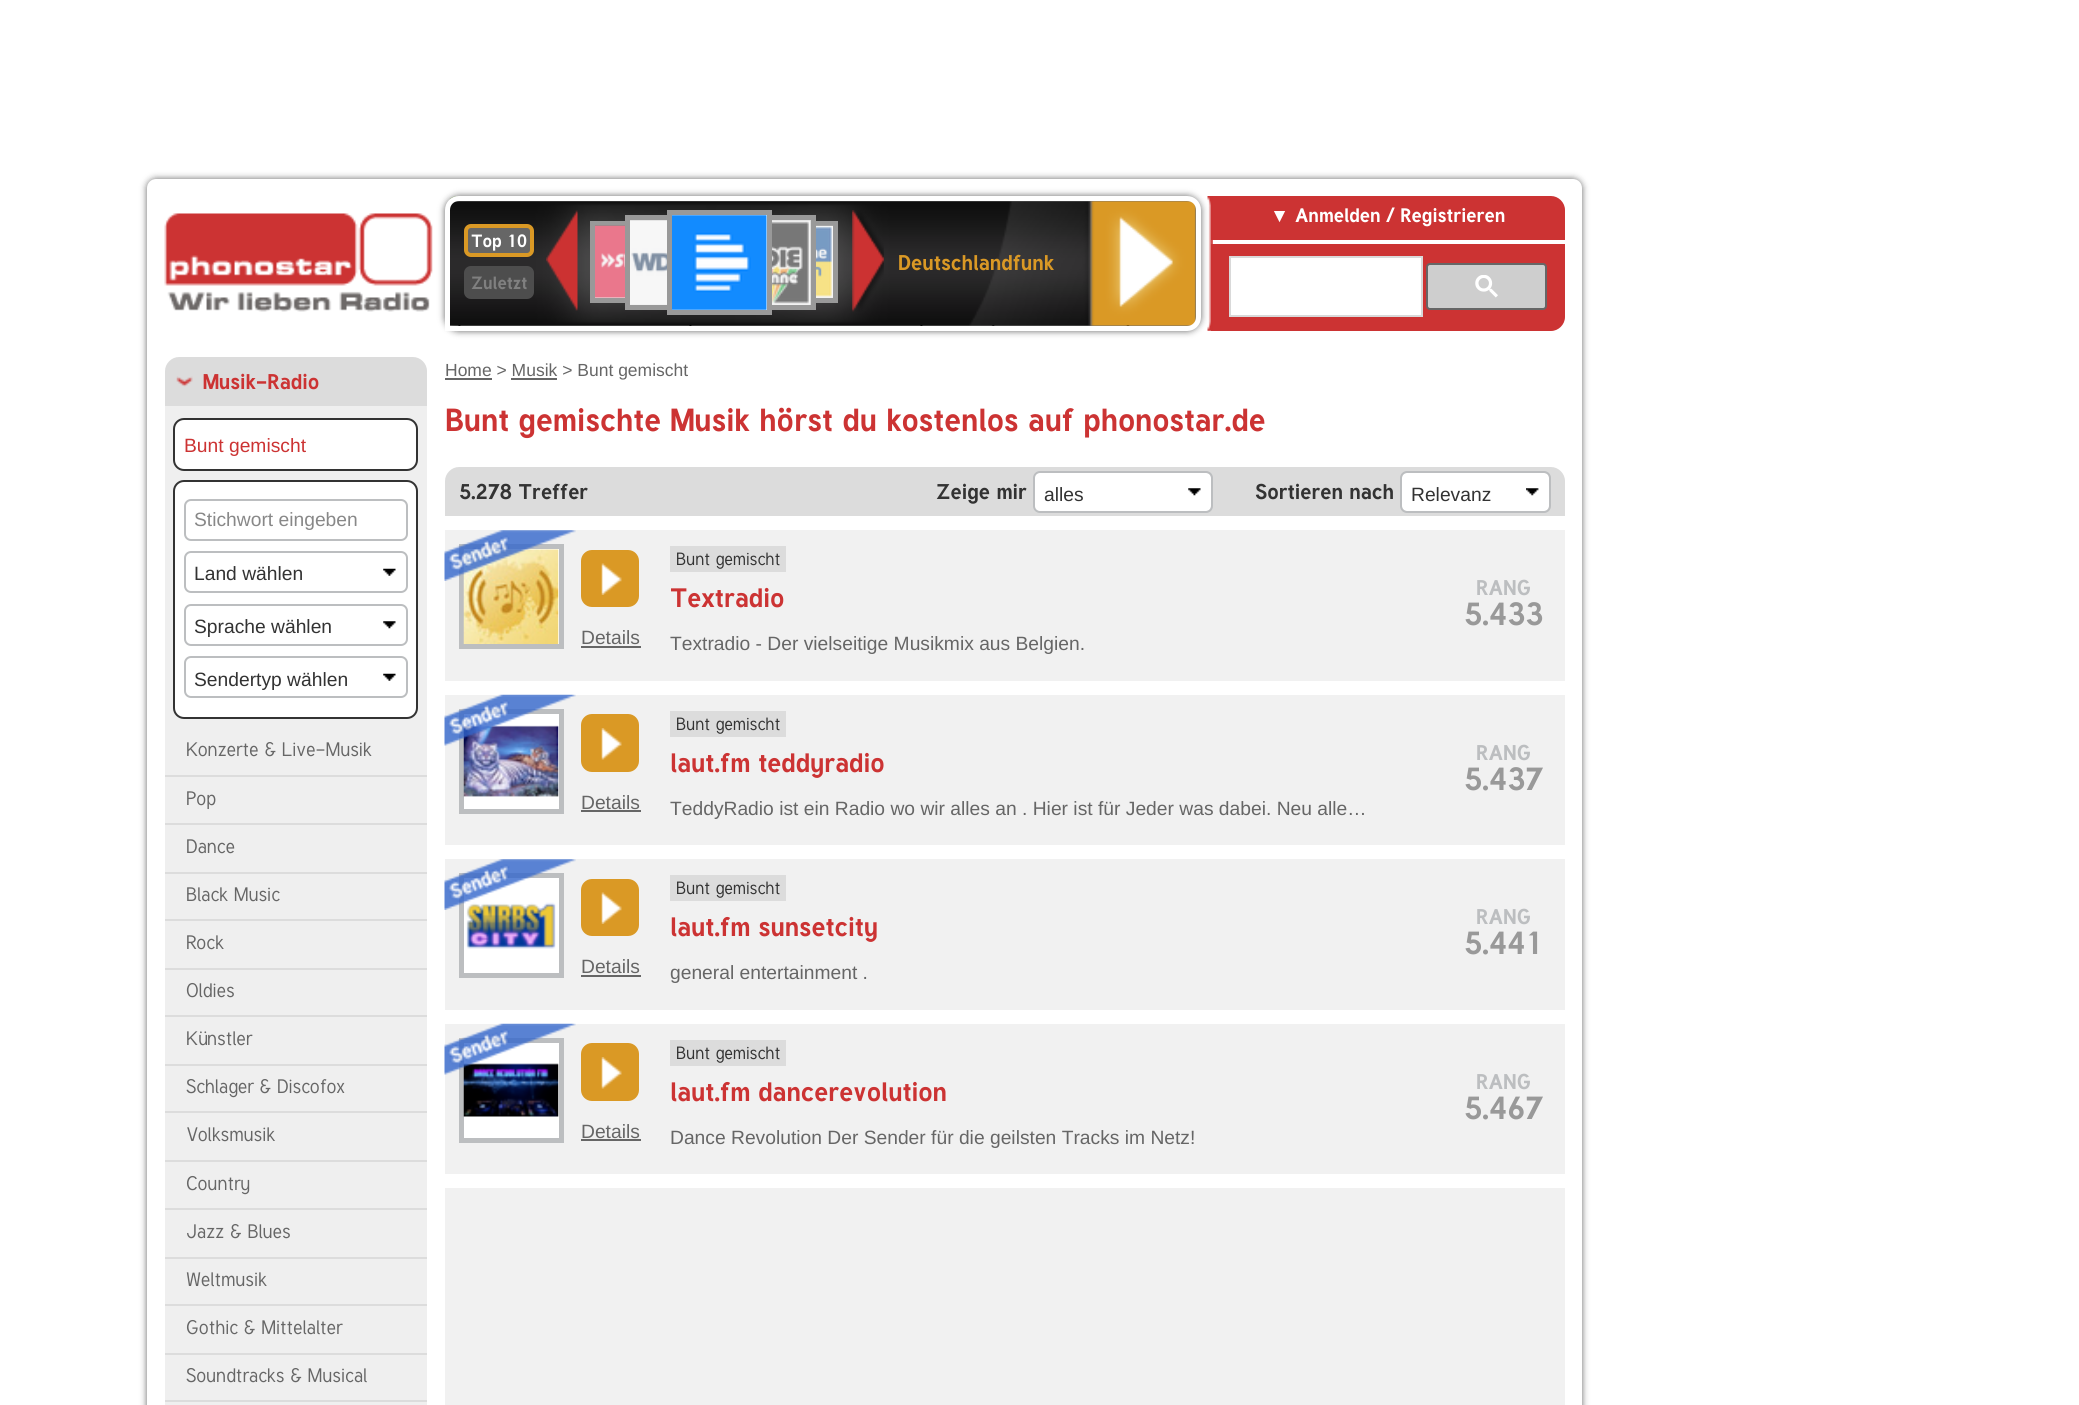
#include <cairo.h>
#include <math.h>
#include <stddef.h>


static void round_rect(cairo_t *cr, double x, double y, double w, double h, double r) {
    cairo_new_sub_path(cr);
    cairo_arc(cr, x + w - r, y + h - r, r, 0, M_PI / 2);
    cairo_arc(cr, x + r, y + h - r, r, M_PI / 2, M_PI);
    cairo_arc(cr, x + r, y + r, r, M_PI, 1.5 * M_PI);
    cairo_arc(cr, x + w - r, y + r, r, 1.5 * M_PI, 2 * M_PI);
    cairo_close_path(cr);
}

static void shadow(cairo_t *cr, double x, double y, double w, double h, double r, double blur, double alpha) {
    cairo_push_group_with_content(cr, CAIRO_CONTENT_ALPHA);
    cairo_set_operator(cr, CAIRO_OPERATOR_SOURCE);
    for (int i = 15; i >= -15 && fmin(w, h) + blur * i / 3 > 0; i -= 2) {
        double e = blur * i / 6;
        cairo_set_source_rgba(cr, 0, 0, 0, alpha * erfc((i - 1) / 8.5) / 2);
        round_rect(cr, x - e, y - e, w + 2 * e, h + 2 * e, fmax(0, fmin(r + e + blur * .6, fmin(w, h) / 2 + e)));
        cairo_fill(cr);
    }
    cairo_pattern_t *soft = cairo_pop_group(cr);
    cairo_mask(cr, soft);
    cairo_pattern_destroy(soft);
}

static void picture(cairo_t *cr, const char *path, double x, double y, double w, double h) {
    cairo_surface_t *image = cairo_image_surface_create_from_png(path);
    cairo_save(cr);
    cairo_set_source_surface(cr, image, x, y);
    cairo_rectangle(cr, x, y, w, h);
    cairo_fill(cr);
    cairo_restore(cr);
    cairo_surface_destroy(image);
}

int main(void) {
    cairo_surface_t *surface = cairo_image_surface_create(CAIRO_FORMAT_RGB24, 2079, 1405);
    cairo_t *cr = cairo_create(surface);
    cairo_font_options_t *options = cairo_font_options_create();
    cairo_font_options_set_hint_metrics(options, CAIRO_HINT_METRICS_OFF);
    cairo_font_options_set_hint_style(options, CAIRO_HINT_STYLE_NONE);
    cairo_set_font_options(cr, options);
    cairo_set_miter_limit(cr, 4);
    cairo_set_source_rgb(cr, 1, 1, 1);
    cairo_paint(cr);
    cairo_set_source_rgb(cr, 0.4, 0.4, 0.4);
    shadow(cr, 147, 179, 1435, 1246, 9, 3.5, 1);
    cairo_set_source_rgb(cr, 1, 1, 1);
    round_rect(cr, 147, 179, 1435, 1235, 9);
    cairo_fill(cr);
    picture(cr, "img1.png", 164, 213, 269, 99);
    cairo_set_source_rgb(cr, 0.4, 0.4, 0.4);
    shadow(cr, 445, 196, 756, 135, 14, 3.5, 1);
    picture(cr, "img2.png", 449, 196, 747, 130);
    cairo_new_path(cr);
    cairo_move_to(cr, 459, 198.5);
    cairo_line_to(cr, 1187, 198.5);
    cairo_curve_to(cr, 1193.5, 198.5, 1198.5, 203.5, 1198.5, 210);
    cairo_line_to(cr, 1198.5, 317);
    cairo_curve_to(cr, 1198.5, 323.5, 1193.5, 328.5, 1187, 328.5);
    cairo_line_to(cr, 447.5, 328.5);
    cairo_line_to(cr, 447.5, 210);
    cairo_curve_to(cr, 447.5, 203.5, 452.5, 198.5, 459, 198.5);
    cairo_close_path(cr);
    cairo_set_source_rgb(cr, 1, 1, 1);
    cairo_set_line_width(cr, 5);
    cairo_stroke(cr);
    cairo_set_source_rgb(cr, 0.4, 0.4, 0.4);
    round_rect(cr, 466, 226, 66, 29, 5);
    cairo_fill_preserve(cr);
    cairo_set_source_rgb(cr, 0.855, 0.6, 0.145);
    cairo_set_line_width(cr, 4);
    cairo_stroke(cr);
    cairo_select_font_face(cr, "Tuffy", CAIRO_FONT_SLANT_NORMAL, CAIRO_FONT_WEIGHT_BOLD);
    cairo_set_font_size(cr, 17.5);
    cairo_set_source_rgb(cr, 1, 1, 1);
    cairo_move_to(cr, 471, 247);
    cairo_show_text(cr, "Top 10");
    cairo_set_source_rgb(cr, 0.302, 0.302, 0.302);
    round_rect(cr, 466, 268, 66, 29, 5);
    cairo_fill_preserve(cr);
    cairo_stroke(cr);
    cairo_set_source_rgb(cr, 0.502, 0.502, 0.502);
    cairo_move_to(cr, 471, 289);
    cairo_show_text(cr, "Zuletzt");
    picture(cr, "img3.png", 546, 210, 32, 101);
    cairo_set_source_rgb(cr, 0.863, 0.863, 0.863);
    cairo_rectangle(cr, 630, 220, 37, 1);
    cairo_fill(cr);
    cairo_rectangle(cr, 592.5, 223.5, 77, 77);
    cairo_set_source_rgb(cr, 0.6, 0.6, 0.6);
    cairo_set_line_width(cr, 5);
    cairo_stroke(cr);
    cairo_rectangle(cr, 627.5, 217.5, 89, 90);
    cairo_stroke(cr);
    cairo_rectangle(cr, 758.5, 223.5, 77, 77);
    cairo_stroke(cr);
    cairo_set_source_rgb(cr, 0.863, 0.863, 0.863);
    cairo_rectangle(cr, 772, 220, 39, 85);
    cairo_fill(cr);
    cairo_rectangle(cr, 723.5, 217.5, 90, 90);
    cairo_set_source_rgb(cr, 0.6, 0.6, 0.6);
    cairo_stroke(cr);
    cairo_rectangle(cr, 669.5, 212.5, 100, 100);
    cairo_stroke(cr);
    cairo_set_source_rgb(cr, 1, 1, 1);
    cairo_rectangle(cr, 672, 215, 95, 95);
    cairo_fill(cr);
    picture(cr, "img4.png", 672, 215, 95, 95);
    cairo_set_source_rgb(cr, 0.933, 0.933, 0.933);
    cairo_rectangle(cr, 630, 221, 37, 84);
    cairo_fill(cr);
    picture(cr, "img5.png", 630, 220, 37, 85);
    cairo_rectangle(cr, 772, 221, 38, 84);
    cairo_fill(cr);
    picture(cr, "img6.png", 772, 220, 39, 85);
    cairo_rectangle(cr, 595, 226, 30, 72);
    cairo_fill(cr);
    picture(cr, "img7.png", 595, 225, 30, 73);
    cairo_rectangle(cr, 816, 226, 17, 72);
    cairo_fill(cr);
    picture(cr, "img8.png", 816, 225, 17, 73);
    picture(cr, "img9.png", 852, 210, 32, 102);
    cairo_set_font_size(cr, 21);
    cairo_set_source_rgb(cr, 0.855, 0.6, 0.145);
    cairo_move_to(cr, 898, 270);
    cairo_show_text(cr, "Deutschlandfunk");
    cairo_set_source_rgb(cr, 0.8, 0.2, 0.2);
    cairo_new_path(cr);
    cairo_move_to(cr, 1211, 196);
    cairo_line_to(cr, 1551, 196);
    cairo_curve_to(cr, 1558.5, 196, 1565, 202.5, 1565, 210);
    cairo_line_to(cr, 1565, 317);
    cairo_curve_to(cr, 1565, 324.5, 1558.5, 331, 1551, 331);
    cairo_line_to(cr, 1211, 331);
    cairo_close_path(cr);
    cairo_fill(cr);
    cairo_set_source_rgb(cr, 1, 1, 1);
    cairo_rectangle(cr, 1211, 240, 354, 4);
    cairo_fill(cr);
    picture(cr, "img10.png", 1207, 196, 6, 135);
    cairo_select_font_face(cr, "Liberation Sans", CAIRO_FONT_SLANT_NORMAL, CAIRO_FONT_WEIGHT_NORMAL);
    cairo_set_font_size(cr, 19.25);
    cairo_move_to(cr, 1270, 222);
    cairo_show_text(cr, "▼");
    cairo_select_font_face(cr, "Tuffy", CAIRO_FONT_SLANT_NORMAL, CAIRO_FONT_WEIGHT_BOLD);
    cairo_move_to(cr, 1295, 222);
    cairo_show_text(cr, "Anmelden / Registrieren");
    cairo_rectangle(cr, 1230, 257, 192, 59);
    cairo_fill_preserve(cr);
    cairo_set_source_rgb(cr, 0.851, 0.851, 0.851);
    cairo_set_line_width(cr, 2);
    cairo_stroke(cr);
    cairo_set_source_rgb(cr, 0.808, 0.808, 0.808);
    round_rect(cr, 1427, 264, 119, 45, 3);
    cairo_fill_preserve(cr);
    cairo_set_source_rgb(cr, 0.4, 0.4, 0.4);
    cairo_stroke(cr);
    picture(cr, "img11.png", 1475, 275, 23, 23);
    cairo_set_source_rgb(cr, 0.863, 0.863, 0.863);
    cairo_new_path(cr);
    cairo_move_to(cr, 179, 357);
    cairo_line_to(cr, 413, 357);
    cairo_curve_to(cr, 420.5, 357, 427, 363.5, 427, 371);
    cairo_line_to(cr, 427, 1405);
    cairo_curve_to(cr, 427, 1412.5, 420.5, 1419, 413, 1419);
    cairo_line_to(cr, 165, 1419);
    cairo_line_to(cr, 165, 371);
    cairo_curve_to(cr, 165, 363.5, 171.5, 357, 179, 357);
    cairo_close_path(cr);
    cairo_fill(cr);
    picture(cr, "img12.png", 176, 376, 17, 11);
    cairo_set_font_size(cr, 21);
    cairo_set_source_rgb(cr, 0.8, 0.2, 0.2);
    cairo_move_to(cr, 203, 389);
    cairo_show_text(cr, "Musik-Radio");
    cairo_set_source_rgb(cr, 0.937, 0.937, 0.937);
    cairo_rectangle(cr, 165, 406, 262, 999);
    cairo_fill(cr);
    cairo_set_source_rgb(cr, 0.863, 0.863, 0.863);
    cairo_rectangle(cr, 165, 775, 262, 2);
    cairo_fill(cr);
    cairo_set_source_rgb(cr, 1, 1, 1);
    round_rect(cr, 174, 419, 243, 51, 10);
    cairo_fill_preserve(cr);
    cairo_set_source_rgb(cr, 0.2, 0.2, 0.2);
    cairo_stroke(cr);
    cairo_select_font_face(cr, "Liberation Sans", CAIRO_FONT_SLANT_NORMAL, CAIRO_FONT_WEIGHT_NORMAL);
    cairo_set_font_size(cr, 19.25);
    cairo_set_source_rgb(cr, 0.8, 0.2, 0.2);
    cairo_move_to(cr, 184, 452);
    cairo_show_text(cr, "Bunt gemischt");
    cairo_set_source_rgb(cr, 1, 1, 1);
    round_rect(cr, 174, 481, 243, 237, 10);
    cairo_fill_preserve(cr);
    cairo_set_source_rgb(cr, 0.2, 0.2, 0.2);
    cairo_stroke(cr);
    round_rect(cr, 185, 500, 222, 40, 6);
    cairo_set_source_rgb(cr, 0.737, 0.745, 0.753);
    cairo_stroke(cr);
    cairo_set_source_rgb(cr, 0.533, 0.533, 0.533);
    cairo_move_to(cr, 194, 526);
    cairo_show_text(cr, "Stichwort eingeben");
    picture(cr, "img13.png", 383, 568, 13, 8);
    round_rect(cr, 185, 552, 222, 40, 6);
    cairo_set_source_rgb(cr, 0.737, 0.745, 0.753);
    cairo_stroke(cr);
    cairo_set_source_rgb(cr, 0.2, 0.2, 0.2);
    cairo_move_to(cr, 194, 580);
    cairo_show_text(cr, "Land wählen");
    picture(cr, "img14.png", 383, 621, 13, 8);
    round_rect(cr, 185, 605, 222, 40, 6);
    cairo_set_source_rgb(cr, 0.737, 0.745, 0.753);
    cairo_stroke(cr);
    cairo_set_source_rgb(cr, 0.2, 0.2, 0.2);
    cairo_move_to(cr, 194, 633);
    cairo_show_text(cr, "Sprache wählen");
    picture(cr, "img13.png", 383, 673, 13, 8);
    round_rect(cr, 185, 657, 222, 40, 6);
    cairo_set_source_rgb(cr, 0.737, 0.745, 0.753);
    cairo_stroke(cr);
    cairo_set_source_rgb(cr, 0.2, 0.2, 0.2);
    cairo_move_to(cr, 194, 686);
    cairo_show_text(cr, "Sendertyp wählen");
    cairo_select_font_face(cr, "Tuffy", CAIRO_FONT_SLANT_NORMAL, CAIRO_FONT_WEIGHT_NORMAL);
    cairo_set_source_rgb(cr, 0.4, 0.4, 0.4);
    cairo_move_to(cr, 186, 756);
    cairo_show_text(cr, "Konzerte & Live-Musik");
    cairo_set_source_rgb(cr, 0.863, 0.863, 0.863);
    cairo_rectangle(cr, 165, 823, 262, 2);
    cairo_fill(cr);
    cairo_set_source_rgb(cr, 0.4, 0.4, 0.4);
    cairo_move_to(cr, 186, 805);
    cairo_show_text(cr, "Pop");
    cairo_set_source_rgb(cr, 0.863, 0.863, 0.863);
    cairo_rectangle(cr, 165, 872, 262, 2);
    cairo_fill(cr);
    cairo_set_source_rgb(cr, 0.4, 0.4, 0.4);
    cairo_move_to(cr, 186, 853);
    cairo_show_text(cr, "Dance");
    cairo_set_source_rgb(cr, 0.863, 0.863, 0.863);
    cairo_rectangle(cr, 165, 919, 262, 2);
    cairo_fill(cr);
    cairo_set_source_rgb(cr, 0.4, 0.4, 0.4);
    cairo_move_to(cr, 186, 901);
    cairo_show_text(cr, "Black Music");
    cairo_set_source_rgb(cr, 0.863, 0.863, 0.863);
    cairo_rectangle(cr, 165, 968, 262, 2);
    cairo_fill(cr);
    cairo_set_source_rgb(cr, 0.4, 0.4, 0.4);
    cairo_move_to(cr, 186, 949);
    cairo_show_text(cr, "Rock");
    cairo_set_source_rgb(cr, 0.863, 0.863, 0.863);
    cairo_rectangle(cr, 165, 1015, 262, 2);
    cairo_fill(cr);
    cairo_set_source_rgb(cr, 0.4, 0.4, 0.4);
    cairo_move_to(cr, 186, 997);
    cairo_show_text(cr, "Oldies");
    cairo_set_source_rgb(cr, 0.863, 0.863, 0.863);
    cairo_rectangle(cr, 165, 1064, 262, 2);
    cairo_fill(cr);
    cairo_set_source_rgb(cr, 0.4, 0.4, 0.4);
    cairo_move_to(cr, 186, 1045);
    cairo_show_text(cr, "Künstler");
    cairo_set_source_rgb(cr, 0.863, 0.863, 0.863);
    cairo_rectangle(cr, 165, 1111, 262, 2);
    cairo_fill(cr);
    cairo_set_source_rgb(cr, 0.4, 0.4, 0.4);
    cairo_move_to(cr, 186, 1093);
    cairo_show_text(cr, "Schlager & Discofox");
    cairo_set_source_rgb(cr, 0.863, 0.863, 0.863);
    cairo_rectangle(cr, 165, 1160, 262, 2);
    cairo_fill(cr);
    cairo_set_source_rgb(cr, 0.4, 0.4, 0.4);
    cairo_move_to(cr, 186, 1141);
    cairo_show_text(cr, "Volksmusik");
    cairo_set_source_rgb(cr, 0.863, 0.863, 0.863);
    cairo_rectangle(cr, 165, 1208, 262, 2);
    cairo_fill(cr);
    cairo_set_source_rgb(cr, 0.4, 0.4, 0.4);
    cairo_move_to(cr, 186, 1190);
    cairo_show_text(cr, "Country");
    cairo_set_source_rgb(cr, 0.863, 0.863, 0.863);
    cairo_rectangle(cr, 165, 1257, 262, 2);
    cairo_fill(cr);
    cairo_set_source_rgb(cr, 0.4, 0.4, 0.4);
    cairo_move_to(cr, 186, 1238);
    cairo_show_text(cr, "Jazz & Blues");
    cairo_set_source_rgb(cr, 0.863, 0.863, 0.863);
    cairo_rectangle(cr, 165, 1304, 262, 2);
    cairo_fill(cr);
    cairo_set_source_rgb(cr, 0.4, 0.4, 0.4);
    cairo_move_to(cr, 186, 1286);
    cairo_show_text(cr, "Weltmusik");
    cairo_set_source_rgb(cr, 0.863, 0.863, 0.863);
    cairo_rectangle(cr, 165, 1353, 262, 2);
    cairo_fill(cr);
    cairo_set_source_rgb(cr, 0.4, 0.4, 0.4);
    cairo_move_to(cr, 186, 1334);
    cairo_show_text(cr, "Gothic & Mittelalter");
    cairo_set_source_rgb(cr, 0.863, 0.863, 0.863);
    cairo_rectangle(cr, 165, 1400, 262, 2);
    cairo_fill(cr);
    cairo_set_source_rgb(cr, 0.4, 0.4, 0.4);
    cairo_move_to(cr, 186, 1382);
    cairo_show_text(cr, "Soundtracks & Musical");
    cairo_rectangle(cr, 445, 378, 47, 2);
    cairo_fill(cr);
    cairo_select_font_face(cr, "Liberation Sans", CAIRO_FONT_SLANT_NORMAL, CAIRO_FONT_WEIGHT_NORMAL);
    cairo_set_font_size(cr, 17.5);
    cairo_move_to(cr, 445, 376);
    cairo_show_text(cr, "Home > Musik > Bunt gemischt");
    cairo_rectangle(cr, 511, 378, 46, 2);
    cairo_fill(cr);
    cairo_select_font_face(cr, "Tuffy", CAIRO_FONT_SLANT_NORMAL, CAIRO_FONT_WEIGHT_BOLD);
    cairo_set_font_size(cr, 31.5);
    cairo_set_source_rgb(cr, 0.8, 0.2, 0.2);
    cairo_move_to(cr, 445, 431);
    cairo_show_text(cr, "Bunt gemischte Musik hörst du kostenlos auf phonostar.de");
    cairo_set_source_rgb(cr, 0.863, 0.863, 0.863);
    cairo_new_path(cr);
    cairo_move_to(cr, 459, 467);
    cairo_line_to(cr, 1551, 467);
    cairo_curve_to(cr, 1558.5, 467, 1565, 473.5, 1565, 481);
    cairo_line_to(cr, 1565, 516);
    cairo_line_to(cr, 445, 516);
    cairo_line_to(cr, 445, 481);
    cairo_curve_to(cr, 445, 473.5, 451.5, 467, 459, 467);
    cairo_close_path(cr);
    cairo_fill(cr);
    cairo_set_font_size(cr, 21);
    cairo_set_source_rgb(cr, 0.2, 0.2, 0.2);
    cairo_move_to(cr, 459, 499);
    cairo_show_text(cr, "5.278 Treffer");
    cairo_move_to(cr, 936, 499);
    cairo_show_text(cr, "Zeige mir");
    cairo_set_source_rgb(cr, 1, 1, 1);
    round_rect(cr, 1034, 473, 177, 38, 5);
    cairo_fill(cr);
    picture(cr, "img14.png", 1188, 488, 13, 8);
    round_rect(cr, 1034, 472, 178, 40, 6);
    cairo_set_source_rgb(cr, 0.737, 0.745, 0.753);
    cairo_stroke(cr);
    cairo_select_font_face(cr, "Liberation Sans", CAIRO_FONT_SLANT_NORMAL, CAIRO_FONT_WEIGHT_NORMAL);
    cairo_set_font_size(cr, 19.25);
    cairo_set_source_rgb(cr, 0.2, 0.2, 0.2);
    cairo_move_to(cr, 1044, 501);
    cairo_show_text(cr, "alles");
    cairo_select_font_face(cr, "Tuffy", CAIRO_FONT_SLANT_NORMAL, CAIRO_FONT_WEIGHT_BOLD);
    cairo_set_font_size(cr, 21);
    cairo_move_to(cr, 1255, 499);
    cairo_show_text(cr, "Sortieren nach");
    cairo_set_source_rgb(cr, 1, 1, 1);
    round_rect(cr, 1402, 473, 147, 38, 5);
    cairo_fill(cr);
    picture(cr, "img15.png", 1526, 488, 13, 8);
    round_rect(cr, 1401, 472, 149, 40, 6);
    cairo_set_source_rgb(cr, 0.737, 0.745, 0.753);
    cairo_stroke(cr);
    cairo_select_font_face(cr, "Liberation Sans", CAIRO_FONT_SLANT_NORMAL, CAIRO_FONT_WEIGHT_NORMAL);
    cairo_set_font_size(cr, 19.25);
    cairo_set_source_rgb(cr, 0.2, 0.2, 0.2);
    cairo_move_to(cr, 1411, 501);
    cairo_show_text(cr, "Relevanz");
    cairo_set_source_rgb(cr, 0.945, 0.945, 0.945);
    cairo_rectangle(cr, 445, 530, 1120, 151);
    cairo_fill(cr);
    cairo_set_source_rgb(cr, 1, 1, 1);
    cairo_rectangle(cr, 461.5, 546.5, 100, 100);
    cairo_fill_preserve(cr);
    cairo_set_source_rgb(cr, 0.737, 0.745, 0.753);
    cairo_set_line_width(cr, 5);
    cairo_stroke(cr);
    picture(cr, "img17.png", 463, 549, 96, 95);
    picture(cr, "img16.png", 444, 530, 132, 51);
    cairo_set_source_rgb(cr, 0.855, 0.6, 0.145);
    round_rect(cr, 581, 550, 58, 57, 11);
    cairo_fill(cr);
    picture(cr, "img18.png", 601, 563, 21, 32);
    cairo_set_source_rgb(cr, 0.4, 0.4, 0.4);
    cairo_move_to(cr, 581, 644);
    cairo_show_text(cr, "Details");
    cairo_rectangle(cr, 581, 646, 60, 2);
    cairo_fill(cr);
    cairo_set_source_rgb(cr, 0.863, 0.863, 0.863);
    cairo_rectangle(cr, 670, 546, 116, 26);
    cairo_fill(cr);
    cairo_select_font_face(cr, "Tuffy", CAIRO_FONT_SLANT_NORMAL, CAIRO_FONT_WEIGHT_NORMAL);
    cairo_set_font_size(cr, 17.5);
    cairo_set_source_rgb(cr, 0.2, 0.2, 0.2);
    cairo_move_to(cr, 676, 565);
    cairo_show_text(cr, "Bunt gemischt");
    cairo_select_font_face(cr, "Tuffy", CAIRO_FONT_SLANT_NORMAL, CAIRO_FONT_WEIGHT_BOLD);
    cairo_set_font_size(cr, 26.25);
    cairo_set_source_rgb(cr, 0.8, 0.2, 0.2);
    cairo_move_to(cr, 670, 607);
    cairo_show_text(cr, "Textradio");
    cairo_select_font_face(cr, "Liberation Sans", CAIRO_FONT_SLANT_NORMAL, CAIRO_FONT_WEIGHT_NORMAL);
    cairo_set_font_size(cr, 19.25);
    cairo_set_source_rgb(cr, 0.4, 0.4, 0.4);
    cairo_move_to(cr, 670, 650);
    cairo_show_text(cr, "Textradio - Der vielseitige Musikmix aus Belgien.");
    cairo_select_font_face(cr, "Tuffy", CAIRO_FONT_SLANT_NORMAL, CAIRO_FONT_WEIGHT_BOLD);
    cairo_set_font_size(cr, 21);
    cairo_set_source_rgb(cr, 0.737, 0.745, 0.753);
    cairo_move_to(cr, 1476, 595);
    cairo_show_text(cr, "RANG");
    cairo_set_font_size(cr, 31.5);
    cairo_set_source_rgb(cr, 0.6, 0.6, 0.6);
    cairo_move_to(cr, 1464, 625);
    cairo_show_text(cr, "5.433");
    cairo_set_source_rgb(cr, 0.945, 0.945, 0.945);
    cairo_rectangle(cr, 445, 695, 1120, 150);
    cairo_fill(cr);
    cairo_set_source_rgb(cr, 1, 1, 1);
    cairo_rectangle(cr, 461.5, 711.5, 100, 100);
    cairo_fill_preserve(cr);
    cairo_set_source_rgb(cr, 0.737, 0.745, 0.753);
    cairo_stroke(cr);
    picture(cr, "img20.png", 463, 725, 96, 72);
    picture(cr, "img19.png", 444, 694, 132, 52);
    cairo_set_source_rgb(cr, 0.855, 0.6, 0.145);
    round_rect(cr, 581, 714, 58, 58, 11);
    cairo_fill(cr);
    picture(cr, "img21.png", 601, 728, 21, 32);
    cairo_select_font_face(cr, "Liberation Sans", CAIRO_FONT_SLANT_NORMAL, CAIRO_FONT_WEIGHT_NORMAL);
    cairo_set_font_size(cr, 19.25);
    cairo_set_source_rgb(cr, 0.4, 0.4, 0.4);
    cairo_move_to(cr, 581, 809);
    cairo_show_text(cr, "Details");
    cairo_rectangle(cr, 581, 810, 60, 2);
    cairo_fill(cr);
    cairo_set_source_rgb(cr, 0.863, 0.863, 0.863);
    cairo_rectangle(cr, 670, 711, 116, 26);
    cairo_fill(cr);
    cairo_select_font_face(cr, "Tuffy", CAIRO_FONT_SLANT_NORMAL, CAIRO_FONT_WEIGHT_NORMAL);
    cairo_set_font_size(cr, 17.5);
    cairo_set_source_rgb(cr, 0.2, 0.2, 0.2);
    cairo_move_to(cr, 676, 730);
    cairo_show_text(cr, "Bunt gemischt");
    cairo_select_font_face(cr, "Tuffy", CAIRO_FONT_SLANT_NORMAL, CAIRO_FONT_WEIGHT_BOLD);
    cairo_set_font_size(cr, 26.25);
    cairo_set_source_rgb(cr, 0.8, 0.2, 0.2);
    cairo_move_to(cr, 670, 772);
    cairo_show_text(cr, "laut.fm teddyradio");
    cairo_select_font_face(cr, "Liberation Sans", CAIRO_FONT_SLANT_NORMAL, CAIRO_FONT_WEIGHT_NORMAL);
    cairo_set_font_size(cr, 19.25);
    cairo_set_source_rgb(cr, 0.4, 0.4, 0.4);
    cairo_move_to(cr, 670, 815);
    cairo_show_text(cr, "TeddyRadio ist ein Radio wo wir alles an . Hier ist für Jeder was dabei. Neu alle…");
    cairo_select_font_face(cr, "Tuffy", CAIRO_FONT_SLANT_NORMAL, CAIRO_FONT_WEIGHT_BOLD);
    cairo_set_font_size(cr, 21);
    cairo_set_source_rgb(cr, 0.737, 0.745, 0.753);
    cairo_move_to(cr, 1476, 760);
    cairo_show_text(cr, "RANG");
    cairo_set_font_size(cr, 31.5);
    cairo_set_source_rgb(cr, 0.6, 0.6, 0.6);
    cairo_move_to(cr, 1464, 790);
    cairo_show_text(cr, "5.437");
    cairo_set_source_rgb(cr, 0.945, 0.945, 0.945);
    cairo_rectangle(cr, 445, 859, 1120, 151);
    cairo_fill(cr);
    cairo_set_source_rgb(cr, 1, 1, 1);
    cairo_rectangle(cr, 461.5, 875.5, 100, 100);
    cairo_fill_preserve(cr);
    cairo_set_source_rgb(cr, 0.737, 0.745, 0.753);
    cairo_stroke(cr);
    picture(cr, "img23.png", 466, 902, 90, 47);
    picture(cr, "img22.png", 444, 859, 132, 51);
    cairo_set_source_rgb(cr, 0.855, 0.6, 0.145);
    round_rect(cr, 581, 879, 58, 57, 11);
    cairo_fill(cr);
    picture(cr, "img18.png", 601, 892, 21, 32);
    cairo_select_font_face(cr, "Liberation Sans", CAIRO_FONT_SLANT_NORMAL, CAIRO_FONT_WEIGHT_NORMAL);
    cairo_set_font_size(cr, 19.25);
    cairo_set_source_rgb(cr, 0.4, 0.4, 0.4);
    cairo_move_to(cr, 581, 973);
    cairo_show_text(cr, "Details");
    cairo_rectangle(cr, 581, 975, 60, 2);
    cairo_fill(cr);
    cairo_set_source_rgb(cr, 0.863, 0.863, 0.863);
    cairo_rectangle(cr, 670, 875, 116, 26);
    cairo_fill(cr);
    cairo_select_font_face(cr, "Tuffy", CAIRO_FONT_SLANT_NORMAL, CAIRO_FONT_WEIGHT_NORMAL);
    cairo_set_font_size(cr, 17.5);
    cairo_set_source_rgb(cr, 0.2, 0.2, 0.2);
    cairo_move_to(cr, 676, 894);
    cairo_show_text(cr, "Bunt gemischt");
    cairo_select_font_face(cr, "Tuffy", CAIRO_FONT_SLANT_NORMAL, CAIRO_FONT_WEIGHT_BOLD);
    cairo_set_font_size(cr, 26.25);
    cairo_set_source_rgb(cr, 0.8, 0.2, 0.2);
    cairo_move_to(cr, 670, 936);
    cairo_show_text(cr, "laut.fm sunsetcity");
    cairo_select_font_face(cr, "Liberation Sans", CAIRO_FONT_SLANT_NORMAL, CAIRO_FONT_WEIGHT_NORMAL);
    cairo_set_font_size(cr, 19.25);
    cairo_set_source_rgb(cr, 0.4, 0.4, 0.4);
    cairo_move_to(cr, 670, 979);
    cairo_show_text(cr, "general entertainment .");
    cairo_select_font_face(cr, "Tuffy", CAIRO_FONT_SLANT_NORMAL, CAIRO_FONT_WEIGHT_BOLD);
    cairo_set_font_size(cr, 21);
    cairo_set_source_rgb(cr, 0.737, 0.745, 0.753);
    cairo_move_to(cr, 1476, 924);
    cairo_show_text(cr, "RANG");
    cairo_set_font_size(cr, 31.5);
    cairo_set_source_rgb(cr, 0.6, 0.6, 0.6);
    cairo_move_to(cr, 1464, 954);
    cairo_show_text(cr, "5.441");
    cairo_set_source_rgb(cr, 0.945, 0.945, 0.945);
    cairo_rectangle(cr, 445, 1024, 1120, 150);
    cairo_fill(cr);
    cairo_set_source_rgb(cr, 1, 1, 1);
    cairo_rectangle(cr, 461.5, 1040.5, 100, 100);
    cairo_fill_preserve(cr);
    cairo_set_source_rgb(cr, 0.737, 0.745, 0.753);
    cairo_stroke(cr);
    picture(cr, "img25.png", 463, 1063, 96, 54);
    picture(cr, "img24.png", 444, 1023, 132, 52);
    cairo_set_source_rgb(cr, 0.855, 0.6, 0.145);
    round_rect(cr, 581, 1043, 58, 58, 11);
    cairo_fill(cr);
    picture(cr, "img21.png", 601, 1057, 21, 32);
    cairo_select_font_face(cr, "Liberation Sans", CAIRO_FONT_SLANT_NORMAL, CAIRO_FONT_WEIGHT_NORMAL);
    cairo_set_font_size(cr, 19.25);
    cairo_set_source_rgb(cr, 0.4, 0.4, 0.4);
    cairo_move_to(cr, 581, 1138);
    cairo_show_text(cr, "Details");
    cairo_rectangle(cr, 581, 1139, 60, 2);
    cairo_fill(cr);
    cairo_set_source_rgb(cr, 0.863, 0.863, 0.863);
    cairo_rectangle(cr, 670, 1040, 116, 26);
    cairo_fill(cr);
    cairo_select_font_face(cr, "Tuffy", CAIRO_FONT_SLANT_NORMAL, CAIRO_FONT_WEIGHT_NORMAL);
    cairo_set_font_size(cr, 17.5);
    cairo_set_source_rgb(cr, 0.2, 0.2, 0.2);
    cairo_move_to(cr, 676, 1059);
    cairo_show_text(cr, "Bunt gemischt");
    cairo_select_font_face(cr, "Tuffy", CAIRO_FONT_SLANT_NORMAL, CAIRO_FONT_WEIGHT_BOLD);
    cairo_set_font_size(cr, 26.25);
    cairo_set_source_rgb(cr, 0.8, 0.2, 0.2);
    cairo_move_to(cr, 670, 1101);
    cairo_show_text(cr, "laut.fm dancerevolution");
    cairo_select_font_face(cr, "Liberation Sans", CAIRO_FONT_SLANT_NORMAL, CAIRO_FONT_WEIGHT_NORMAL);
    cairo_set_font_size(cr, 19.25);
    cairo_set_source_rgb(cr, 0.4, 0.4, 0.4);
    cairo_move_to(cr, 670, 1144);
    cairo_show_text(cr, "Dance Revolution Der Sender für die geilsten Tracks im Netz!");
    cairo_select_font_face(cr, "Tuffy", CAIRO_FONT_SLANT_NORMAL, CAIRO_FONT_WEIGHT_BOLD);
    cairo_set_font_size(cr, 21);
    cairo_set_source_rgb(cr, 0.737, 0.745, 0.753);
    cairo_move_to(cr, 1476, 1089);
    cairo_show_text(cr, "RANG");
    cairo_set_font_size(cr, 31.5);
    cairo_set_source_rgb(cr, 0.6, 0.6, 0.6);
    cairo_move_to(cr, 1464, 1119);
    cairo_show_text(cr, "5.467");
    cairo_set_source_rgb(cr, 0.945, 0.945, 0.945);
    cairo_rectangle(cr, 445, 1188, 1120, 217);
    cairo_fill(cr);
    cairo_surface_write_to_png(surface, "page.png");
    cairo_font_options_destroy(options);
    cairo_destroy(cr);
    cairo_surface_destroy(surface);
    return 0;
}
